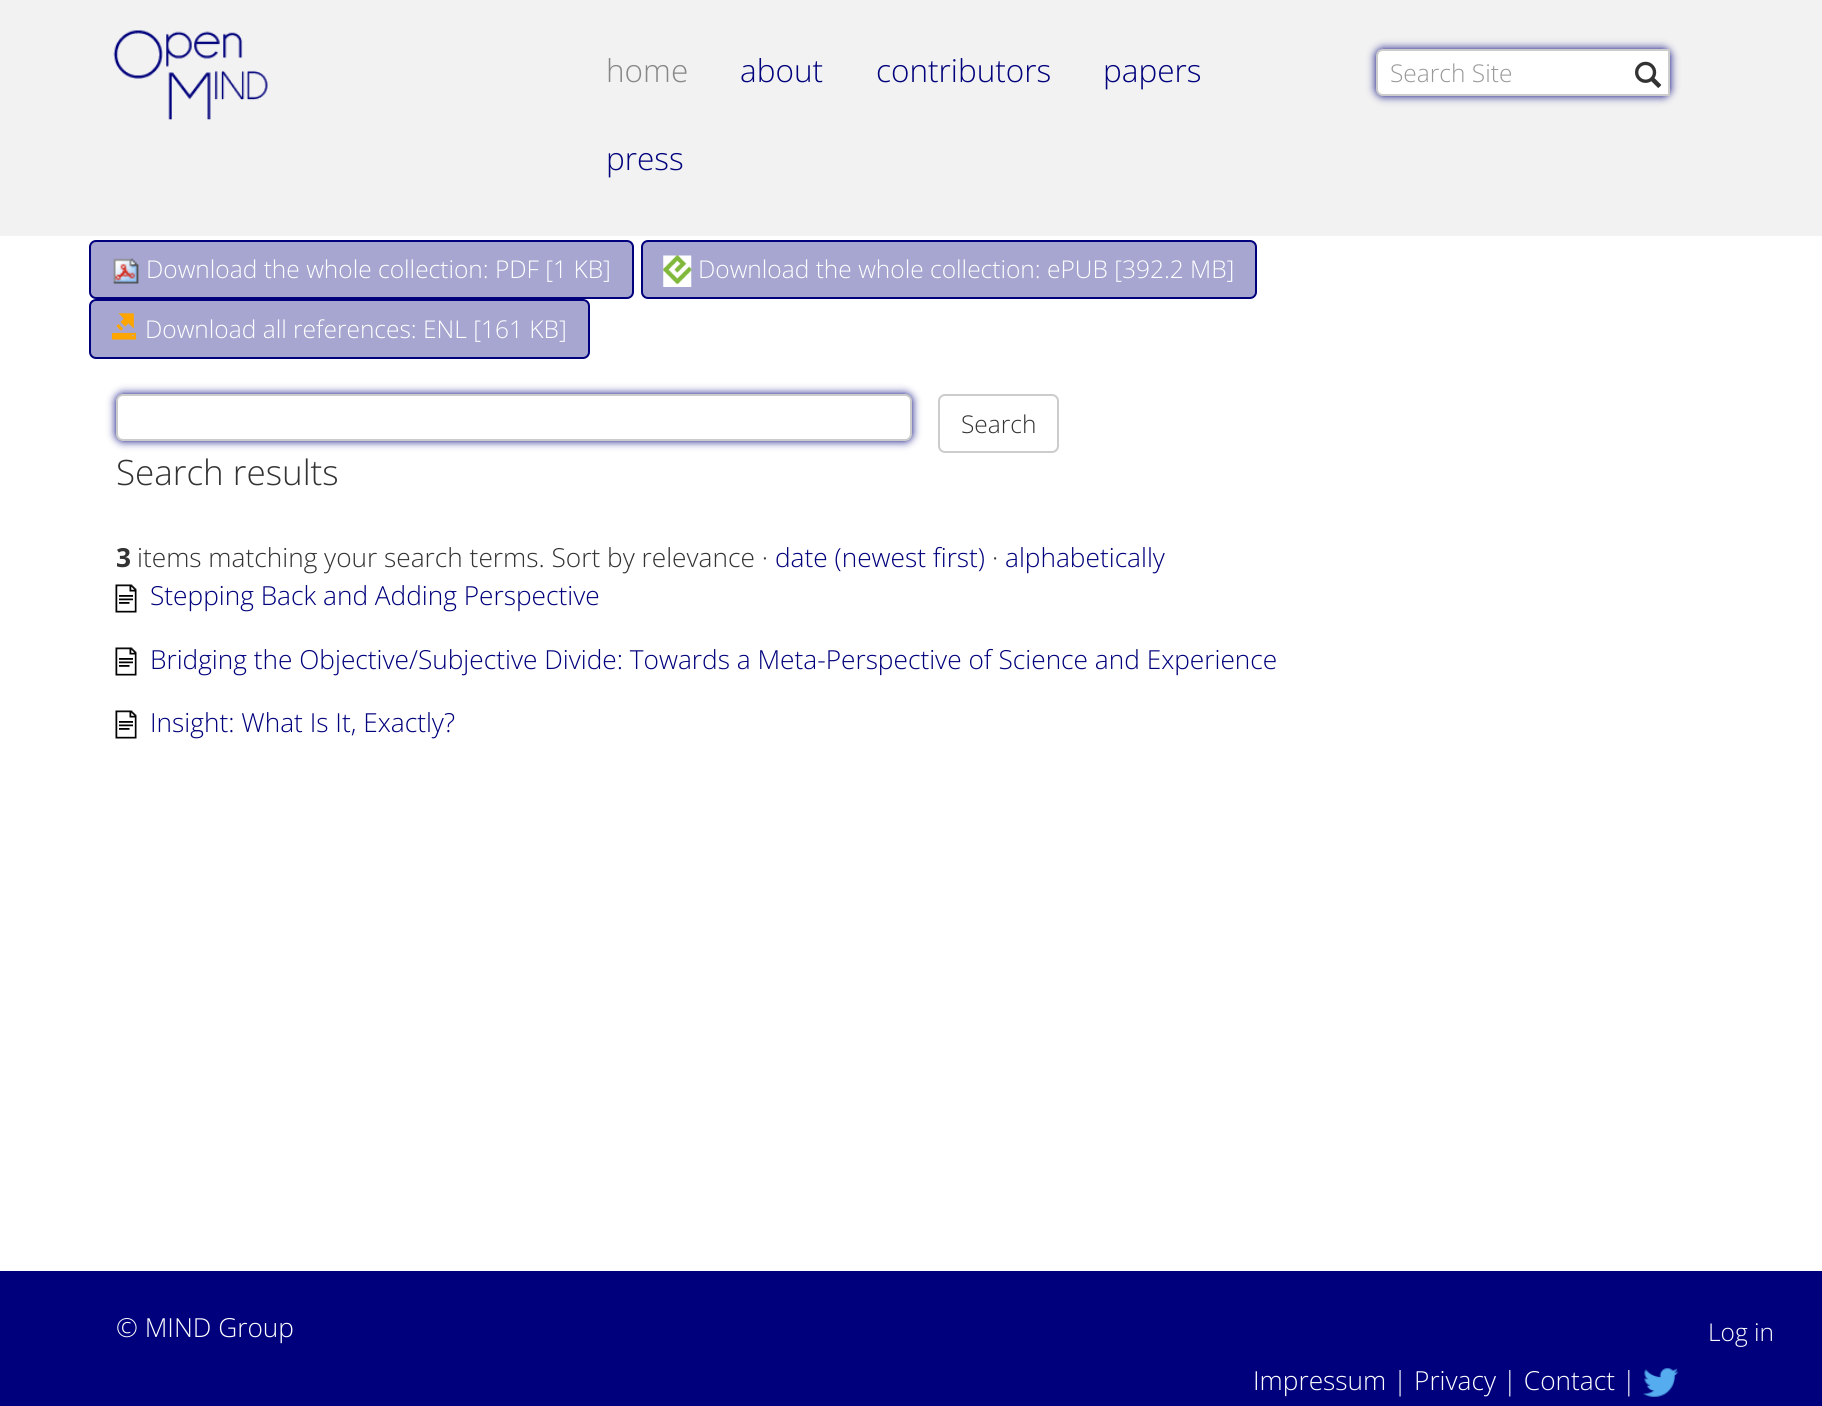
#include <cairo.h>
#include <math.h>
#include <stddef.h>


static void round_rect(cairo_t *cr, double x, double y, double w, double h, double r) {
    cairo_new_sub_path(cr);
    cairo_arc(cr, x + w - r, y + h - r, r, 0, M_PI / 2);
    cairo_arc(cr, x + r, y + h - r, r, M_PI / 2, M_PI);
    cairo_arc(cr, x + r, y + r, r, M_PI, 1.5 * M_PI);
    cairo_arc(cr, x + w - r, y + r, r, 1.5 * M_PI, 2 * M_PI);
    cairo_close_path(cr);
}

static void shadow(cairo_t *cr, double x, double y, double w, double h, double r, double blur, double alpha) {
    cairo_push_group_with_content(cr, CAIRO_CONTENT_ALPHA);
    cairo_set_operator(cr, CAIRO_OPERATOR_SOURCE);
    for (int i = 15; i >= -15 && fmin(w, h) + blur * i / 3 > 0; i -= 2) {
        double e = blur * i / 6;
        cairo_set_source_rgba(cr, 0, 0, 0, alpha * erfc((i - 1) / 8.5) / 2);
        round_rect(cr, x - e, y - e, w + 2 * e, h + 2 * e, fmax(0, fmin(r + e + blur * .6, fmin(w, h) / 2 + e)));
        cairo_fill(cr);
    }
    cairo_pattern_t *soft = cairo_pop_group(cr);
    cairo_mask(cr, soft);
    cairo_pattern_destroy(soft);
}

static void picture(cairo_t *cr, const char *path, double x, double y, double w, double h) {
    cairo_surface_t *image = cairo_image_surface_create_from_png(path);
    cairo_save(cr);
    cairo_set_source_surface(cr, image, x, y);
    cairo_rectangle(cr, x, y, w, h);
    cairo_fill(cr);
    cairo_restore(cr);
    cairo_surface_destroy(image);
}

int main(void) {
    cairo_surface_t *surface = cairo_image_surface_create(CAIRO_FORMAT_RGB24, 1822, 1406);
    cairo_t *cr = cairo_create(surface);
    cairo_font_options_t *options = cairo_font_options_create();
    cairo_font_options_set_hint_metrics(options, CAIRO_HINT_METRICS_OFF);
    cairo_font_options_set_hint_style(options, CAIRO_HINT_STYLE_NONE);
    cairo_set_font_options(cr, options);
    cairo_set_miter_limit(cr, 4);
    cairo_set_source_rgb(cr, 1, 1, 1);
    cairo_paint(cr);
    cairo_set_source_rgb(cr, 0.949, 0.949, 0.949);
    cairo_rectangle(cr, 0, 0, 1822, 236);
    cairo_fill(cr);
    picture(cr, "img1.png", 113, 30, 155, 90);
    cairo_select_font_face(cr, "Open Sans Light", CAIRO_FONT_SLANT_NORMAL, CAIRO_FONT_WEIGHT_NORMAL);
    cairo_set_font_size(cr, 31.5);
    cairo_set_source_rgb(cr, 0.533, 0.533, 0.533);
    cairo_move_to(cr, 606, 82);
    cairo_show_text(cr, "home");
    cairo_set_source_rgb(cr, 0, 0, 0.486);
    cairo_move_to(cr, 740, 82);
    cairo_show_text(cr, "about");
    cairo_move_to(cr, 876, 82);
    cairo_show_text(cr, "contributors");
    cairo_move_to(cr, 1103, 82);
    cairo_show_text(cr, "papers");
    cairo_move_to(cr, 606, 170);
    cairo_show_text(cr, "press");
    cairo_set_source_rgb(cr, 0, 0, 0.486);
    shadow(cr, 1376, 49, 294, 47, 7, 4.5, 1);
    cairo_set_source_rgb(cr, 1, 1, 1);
    cairo_new_path(cr);
    cairo_move_to(cr, 1383, 50);
    cairo_line_to(cr, 1669, 50);
    cairo_line_to(cr, 1669, 95);
    cairo_line_to(cr, 1383, 95);
    cairo_curve_to(cr, 1379.5, 95, 1377, 92.5, 1377, 89);
    cairo_line_to(cr, 1377, 56);
    cairo_curve_to(cr, 1377, 52.5, 1379.5, 50, 1383, 50);
    cairo_close_path(cr);
    cairo_fill_preserve(cr);
    cairo_set_source_rgb(cr, 0.8, 0.8, 0.8);
    cairo_stroke(cr);
    cairo_set_font_size(cr, 24.5);
    cairo_set_source_rgb(cr, 0.6, 0.6, 0.6);
    cairo_move_to(cr, 1390, 82);
    cairo_show_text(cr, "Search Site");
    picture(cr, "img2.png", 1635, 61, 27, 27);
    cairo_set_source_rgb(cr, 0.651, 0.651, 0.82);
    round_rect(cr, 90, 241, 543, 57, 6);
    cairo_fill_preserve(cr);
    cairo_set_source_rgb(cr, 0, 0, 0.486);
    cairo_stroke(cr);
    picture(cr, "img3.png", 113, 258, 26, 26);
    cairo_set_source_rgb(cr, 1, 1, 1);
    cairo_move_to(cr, 146, 278);
    cairo_show_text(cr, "Download the whole collection: PDF [1 KB]");
    cairo_set_source_rgb(cr, 0.651, 0.651, 0.82);
    round_rect(cr, 642, 241, 614, 57, 6);
    cairo_fill_preserve(cr);
    cairo_set_source_rgb(cr, 0, 0, 0.486);
    cairo_stroke(cr);
    picture(cr, "img4.png", 663, 255, 29, 32);
    cairo_set_source_rgb(cr, 1, 1, 1);
    cairo_move_to(cr, 698, 278);
    cairo_show_text(cr, "Download the whole collection: ePUB [392.2 MB]");
    cairo_set_source_rgb(cr, 0.651, 0.651, 0.82);
    round_rect(cr, 90, 300, 499, 58, 6);
    cairo_fill_preserve(cr);
    cairo_set_source_rgb(cr, 0, 0, 0.486);
    cairo_stroke(cr);
    picture(cr, "img5.png", 112, 313, 25, 27);
    cairo_set_source_rgb(cr, 1, 1, 1);
    cairo_move_to(cr, 145, 338);
    cairo_show_text(cr, "Download all references: ENL [161 KB]");
    cairo_set_source_rgb(cr, 0, 0, 0.486);
    shadow(cr, 116, 394, 796, 47, 7, 4.5, 1);
    cairo_set_source_rgb(cr, 1, 1, 1);
    round_rect(cr, 117, 395, 794, 45, 6);
    cairo_fill_preserve(cr);
    cairo_set_source_rgb(cr, 0.8, 0.8, 0.8);
    cairo_stroke(cr);
    round_rect(cr, 939, 395, 119, 57, 6);
    cairo_stroke(cr);
    cairo_set_source_rgb(cr, 0.2, 0.2, 0.2);
    cairo_move_to(cr, 961, 433);
    cairo_show_text(cr, "Search");
    cairo_set_font_size(cr, 35);
    cairo_move_to(cr, 116, 485);
    cairo_show_text(cr, "Search results");
    cairo_select_font_face(cr, "Open Sans", CAIRO_FONT_SLANT_NORMAL, CAIRO_FONT_WEIGHT_BOLD);
    cairo_set_font_size(cr, 26.25);
    cairo_move_to(cr, 116, 567);
    cairo_show_text(cr, "3");
    cairo_select_font_face(cr, "Open Sans Light", CAIRO_FONT_SLANT_NORMAL, CAIRO_FONT_WEIGHT_NORMAL);
    cairo_move_to(cr, 137, 567);
    cairo_show_text(cr, "items matching your search terms. Sort by relevance ·");
    cairo_set_source_rgb(cr, 0, 0, 0.486);
    cairo_move_to(cr, 775, 567);
    cairo_show_text(cr, "date (newest first)");
    cairo_set_source_rgb(cr, 0.2, 0.2, 0.2);
    cairo_move_to(cr, 992, 567);
    cairo_show_text(cr, "·");
    cairo_set_source_rgb(cr, 0, 0, 0.486);
    cairo_move_to(cr, 1005, 567);
    cairo_show_text(cr, "alphabetically");
    picture(cr, "img6.png", 115, 584, 22, 29);
    cairo_move_to(cr, 150, 605);
    cairo_show_text(cr, "Stepping Back and Adding Perspective");
    picture(cr, "img6.png", 115, 647, 22, 29);
    cairo_move_to(cr, 150, 669);
    cairo_show_text(cr, "Bridging the Objective/Subjective Divide: Towards a Meta-Perspective of Science and Experience");
    picture(cr, "img6.png", 115, 710, 22, 29);
    cairo_move_to(cr, 150, 732);
    cairo_show_text(cr, "Insight: What Is It, Exactly?");
    cairo_rectangle(cr, 0, 1271, 1822, 135);
    cairo_fill(cr);
    cairo_set_source_rgb(cr, 1, 1, 1);
    cairo_move_to(cr, 116, 1337);
    cairo_show_text(cr, "© MIND Group");
    cairo_move_to(cr, 1253, 1390);
    cairo_show_text(cr, "Impressum | Privacy | Contact |");
    picture(cr, "img7.png", 1643, 1368, 36, 29);
    cairo_set_font_size(cr, 24.5);
    cairo_move_to(cr, 1708, 1341);
    cairo_show_text(cr, "Log in");
    cairo_surface_write_to_png(surface, "page.png");
    cairo_font_options_destroy(options);
    cairo_destroy(cr);
    cairo_surface_destroy(surface);
    return 0;
}
